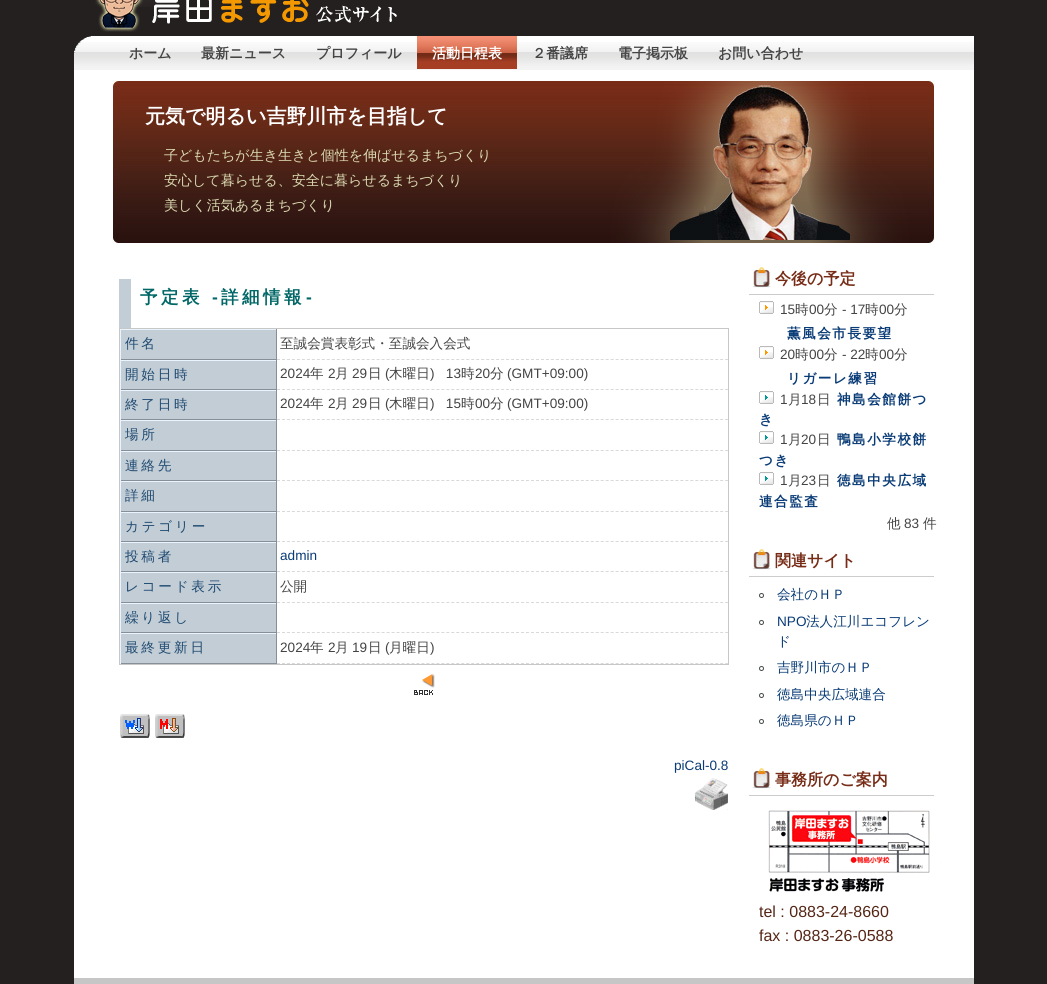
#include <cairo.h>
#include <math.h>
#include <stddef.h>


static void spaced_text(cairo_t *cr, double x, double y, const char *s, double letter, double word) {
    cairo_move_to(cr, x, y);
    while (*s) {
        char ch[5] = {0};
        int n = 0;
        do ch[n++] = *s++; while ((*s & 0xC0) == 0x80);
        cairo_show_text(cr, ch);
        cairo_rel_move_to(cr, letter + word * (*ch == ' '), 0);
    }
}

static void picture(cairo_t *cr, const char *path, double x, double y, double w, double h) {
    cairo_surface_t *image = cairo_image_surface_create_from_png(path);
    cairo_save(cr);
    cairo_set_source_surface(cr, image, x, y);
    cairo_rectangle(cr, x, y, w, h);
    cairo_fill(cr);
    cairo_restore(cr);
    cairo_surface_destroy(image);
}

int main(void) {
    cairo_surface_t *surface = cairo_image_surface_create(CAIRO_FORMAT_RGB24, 1047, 984);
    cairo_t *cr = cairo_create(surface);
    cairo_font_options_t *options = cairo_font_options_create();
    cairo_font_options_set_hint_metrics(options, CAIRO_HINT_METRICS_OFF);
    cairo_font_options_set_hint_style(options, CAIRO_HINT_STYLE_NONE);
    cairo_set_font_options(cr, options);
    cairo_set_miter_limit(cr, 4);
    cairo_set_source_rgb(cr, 0.141, 0.125, 0.122);
    cairo_paint(cr);
    picture(cr, "img1.png", 133, 0, 30, 7);
    picture(cr, "img2.png", 95, 0, 302, 32);
    cairo_set_source_rgb(cr, 1, 1, 1);
    cairo_rectangle(cr, 74, 36, 900, 942);
    cairo_fill(cr);
    picture(cr, "img3.png", 74, 42, 900, 28);
    picture(cr, "img4.png", 74, 36, 17, 17);
    cairo_select_font_face(cr, "WenQuanYi Zen Hei", CAIRO_FONT_SLANT_NORMAL, CAIRO_FONT_WEIGHT_BOLD);
    cairo_set_font_size(cr, 14);
    cairo_set_source_rgb(cr, 0.267, 0.267, 0.267);
    cairo_move_to(cr, 129, 58);
    cairo_show_text(cr, "ホーム");
    cairo_move_to(cr, 201, 58);
    cairo_show_text(cr, "最新ニュース");
    cairo_move_to(cr, 316, 58);
    cairo_show_text(cr, "プロフィール");
    picture(cr, "img5.png", 417, 36, 100, 33);
    cairo_set_source_rgb(cr, 1, 1, 1);
    cairo_move_to(cr, 432, 58);
    cairo_show_text(cr, "活動日程表");
    cairo_set_source_rgb(cr, 0.267, 0.267, 0.267);
    cairo_move_to(cr, 532, 58);
    cairo_show_text(cr, "２番議席");
    cairo_move_to(cr, 618, 58);
    cairo_show_text(cr, "電子掲示板");
    cairo_move_to(cr, 718, 58);
    cairo_show_text(cr, "お問い合わせ");
    picture(cr, "img6.png", 112, 80, 823, 164);
    cairo_set_font_size(cr, 20);
    cairo_set_source_rgb(cr, 1, 1, 1);
    cairo_move_to(cr, 145, 123);
    cairo_show_text(cr, "元気で明るい吉野川市を目指して");
    cairo_select_font_face(cr, "WenQuanYi Zen Hei Medium", CAIRO_FONT_SLANT_NORMAL, CAIRO_FONT_WEIGHT_NORMAL);
    cairo_set_font_size(cr, 14);
    cairo_set_source_rgb(cr, 0.855, 0.847, 0.69);
    cairo_move_to(cr, 164, 160);
    cairo_show_text(cr, "子どもたちが生き生きと個性を伸ばせるまちづくり");
    cairo_move_to(cr, 164, 185);
    cairo_show_text(cr, "安心して暮らせる、安全に暮らせるまちづくり");
    cairo_move_to(cr, 164, 210);
    cairo_show_text(cr, "美しく活気あるまちづくり");
    cairo_set_source_rgb(cr, 0.761, 0.804, 0.839);
    cairo_rectangle(cr, 119, 279, 12, 49);
    cairo_fill(cr);
    cairo_select_font_face(cr, "WenQuanYi Zen Hei", CAIRO_FONT_SLANT_NORMAL, CAIRO_FONT_WEIGHT_BOLD);
    cairo_set_font_size(cr, 17.5);
    cairo_set_source_rgb(cr, 0, 0.4, 0.4);
    spaced_text(cr, 140, 303, "予定表", 3.5, 0);
    cairo_select_font_face(cr, "Liberation Sans", CAIRO_FONT_SLANT_NORMAL, CAIRO_FONT_WEIGHT_BOLD);
    spaced_text(cr, 212, 303, "-", 3.5, 0);
    cairo_select_font_face(cr, "WenQuanYi Zen Hei", CAIRO_FONT_SLANT_NORMAL, CAIRO_FONT_WEIGHT_BOLD);
    spaced_text(cr, 221, 303, "詳細情報", 3.5, 0);
    cairo_select_font_face(cr, "Liberation Sans", CAIRO_FONT_SLANT_NORMAL, CAIRO_FONT_WEIGHT_BOLD);
    spaced_text(cr, 306, 303, "-", 3.5, 0);
    cairo_rectangle(cr, 119.5, 328.5, 609, 336);
    cairo_set_source_rgb(cr, 0.78, 0.78, 0.78);
    cairo_set_line_width(cr, 1);
    cairo_stroke(cr);
    cairo_set_source_rgb(cr, 0.761, 0.804, 0.839);
    cairo_rectangle(cr, 121, 330, 155, 29);
    cairo_fill(cr);
    cairo_set_source_rgb(cr, 0.91, 0.957, 1);
    cairo_rectangle(cr, 120, 329, 157, 1);
    cairo_fill(cr);
    cairo_set_source_rgb(cr, 0.529, 0.557, 0.588);
    cairo_rectangle(cr, 276, 329, 1, 31);
    cairo_fill(cr);
    cairo_rectangle(cr, 120, 359, 157, 1);
    cairo_fill(cr);
    cairo_set_source_rgb(cr, 0.91, 0.957, 1);
    cairo_rectangle(cr, 120, 329, 1, 31);
    cairo_fill(cr);
    cairo_select_font_face(cr, "WenQuanYi Zen Hei Medium", CAIRO_FONT_SLANT_NORMAL, CAIRO_FONT_WEIGHT_NORMAL);
    cairo_set_font_size(cr, 13.6);
    cairo_set_source_rgb(cr, 0.118, 0.286, 0.439);
    spaced_text(cr, 125, 348, "件名", 2.75, 0);
    cairo_new_path(cr);
    cairo_move_to(cr, 277, 359.5);
    cairo_line_to(cr, 728, 359.5);
    cairo_set_source_rgb(cr, 0.851, 0.851, 0.851);
    cairo_set_dash(cr, (double[]){3, 1.98}, 2, 0);
    cairo_stroke(cr);
    cairo_set_source_rgb(cr, 0.267, 0.267, 0.267);
    cairo_move_to(cr, 280, 348);
    cairo_show_text(cr, "至誠会賞表彰式・至誠会入会式");
    cairo_set_source_rgb(cr, 0.761, 0.804, 0.839);
    cairo_rectangle(cr, 121, 361, 155, 28);
    cairo_fill(cr);
    cairo_set_source_rgb(cr, 0.91, 0.957, 1);
    cairo_rectangle(cr, 120, 360, 157, 1);
    cairo_fill(cr);
    cairo_set_source_rgb(cr, 0.529, 0.557, 0.588);
    cairo_rectangle(cr, 276, 360, 1, 30);
    cairo_fill(cr);
    cairo_rectangle(cr, 120, 389, 157, 1);
    cairo_fill(cr);
    cairo_set_source_rgb(cr, 0.91, 0.957, 1);
    cairo_rectangle(cr, 120, 360, 1, 30);
    cairo_fill(cr);
    cairo_set_source_rgb(cr, 0.118, 0.286, 0.439);
    spaced_text(cr, 125, 379, "開始日時", 2.75, 0);
    cairo_new_path(cr);
    cairo_move_to(cr, 277, 389.5);
    cairo_line_to(cr, 728, 389.5);
    cairo_set_source_rgb(cr, 0.851, 0.851, 0.851);
    cairo_stroke(cr);
    cairo_select_font_face(cr, "Liberation Sans", CAIRO_FONT_SLANT_NORMAL, CAIRO_FONT_WEIGHT_NORMAL);
    cairo_set_source_rgb(cr, 0.267, 0.267, 0.267);
    cairo_move_to(cr, 280, 378);
    cairo_show_text(cr, "2024");
    cairo_select_font_face(cr, "WenQuanYi Zen Hei Medium", CAIRO_FONT_SLANT_NORMAL, CAIRO_FONT_WEIGHT_NORMAL);
    cairo_move_to(cr, 310, 378);
    cairo_show_text(cr, "年");
    cairo_select_font_face(cr, "Liberation Sans", CAIRO_FONT_SLANT_NORMAL, CAIRO_FONT_WEIGHT_NORMAL);
    cairo_move_to(cr, 328, 378);
    cairo_show_text(cr, "2");
    cairo_select_font_face(cr, "WenQuanYi Zen Hei Medium", CAIRO_FONT_SLANT_NORMAL, CAIRO_FONT_WEIGHT_NORMAL);
    cairo_move_to(cr, 335, 378);
    cairo_show_text(cr, "月");
    cairo_select_font_face(cr, "Liberation Sans", CAIRO_FONT_SLANT_NORMAL, CAIRO_FONT_WEIGHT_NORMAL);
    cairo_move_to(cr, 352, 378);
    cairo_show_text(cr, "29");
    cairo_select_font_face(cr, "WenQuanYi Zen Hei Medium", CAIRO_FONT_SLANT_NORMAL, CAIRO_FONT_WEIGHT_NORMAL);
    cairo_move_to(cr, 368, 378);
    cairo_show_text(cr, "日");
    cairo_select_font_face(cr, "Liberation Sans", CAIRO_FONT_SLANT_NORMAL, CAIRO_FONT_WEIGHT_NORMAL);
    cairo_move_to(cr, 385, 378);
    cairo_show_text(cr, "(");
    cairo_select_font_face(cr, "WenQuanYi Zen Hei Medium", CAIRO_FONT_SLANT_NORMAL, CAIRO_FONT_WEIGHT_NORMAL);
    cairo_move_to(cr, 389, 378);
    cairo_show_text(cr, "木曜日");
    cairo_select_font_face(cr, "Liberation Sans", CAIRO_FONT_SLANT_NORMAL, CAIRO_FONT_WEIGHT_NORMAL);
    cairo_move_to(cr, 430, 378);
    cairo_show_text(cr, ")   13");
    cairo_select_font_face(cr, "WenQuanYi Zen Hei Medium", CAIRO_FONT_SLANT_NORMAL, CAIRO_FONT_WEIGHT_NORMAL);
    cairo_move_to(cr, 461, 378);
    cairo_show_text(cr, "時");
    cairo_select_font_face(cr, "Liberation Sans", CAIRO_FONT_SLANT_NORMAL, CAIRO_FONT_WEIGHT_NORMAL);
    cairo_move_to(cr, 475, 378);
    cairo_show_text(cr, "20");
    cairo_select_font_face(cr, "WenQuanYi Zen Hei Medium", CAIRO_FONT_SLANT_NORMAL, CAIRO_FONT_WEIGHT_NORMAL);
    cairo_move_to(cr, 490, 378);
    cairo_show_text(cr, "分");
    cairo_select_font_face(cr, "Liberation Sans", CAIRO_FONT_SLANT_NORMAL, CAIRO_FONT_WEIGHT_NORMAL);
    cairo_move_to(cr, 507, 378);
    cairo_show_text(cr, "(GMT+09:00)");
    cairo_set_source_rgb(cr, 0.761, 0.804, 0.839);
    cairo_rectangle(cr, 121, 391, 155, 28);
    cairo_fill(cr);
    cairo_set_source_rgb(cr, 0.91, 0.957, 1);
    cairo_rectangle(cr, 120, 390, 157, 1);
    cairo_fill(cr);
    cairo_set_source_rgb(cr, 0.529, 0.557, 0.588);
    cairo_rectangle(cr, 276, 390, 1, 30);
    cairo_fill(cr);
    cairo_rectangle(cr, 120, 419, 157, 1);
    cairo_fill(cr);
    cairo_set_source_rgb(cr, 0.91, 0.957, 1);
    cairo_rectangle(cr, 120, 390, 1, 30);
    cairo_fill(cr);
    cairo_select_font_face(cr, "WenQuanYi Zen Hei Medium", CAIRO_FONT_SLANT_NORMAL, CAIRO_FONT_WEIGHT_NORMAL);
    cairo_set_source_rgb(cr, 0.118, 0.286, 0.439);
    spaced_text(cr, 125, 409, "終了日時", 2.75, 0);
    cairo_new_path(cr);
    cairo_move_to(cr, 277, 419.5);
    cairo_line_to(cr, 728, 419.5);
    cairo_set_source_rgb(cr, 0.851, 0.851, 0.851);
    cairo_stroke(cr);
    cairo_select_font_face(cr, "Liberation Sans", CAIRO_FONT_SLANT_NORMAL, CAIRO_FONT_WEIGHT_NORMAL);
    cairo_set_source_rgb(cr, 0.267, 0.267, 0.267);
    cairo_move_to(cr, 280, 408);
    cairo_show_text(cr, "2024");
    cairo_select_font_face(cr, "WenQuanYi Zen Hei Medium", CAIRO_FONT_SLANT_NORMAL, CAIRO_FONT_WEIGHT_NORMAL);
    cairo_move_to(cr, 310, 408);
    cairo_show_text(cr, "年");
    cairo_select_font_face(cr, "Liberation Sans", CAIRO_FONT_SLANT_NORMAL, CAIRO_FONT_WEIGHT_NORMAL);
    cairo_move_to(cr, 328, 408);
    cairo_show_text(cr, "2");
    cairo_select_font_face(cr, "WenQuanYi Zen Hei Medium", CAIRO_FONT_SLANT_NORMAL, CAIRO_FONT_WEIGHT_NORMAL);
    cairo_move_to(cr, 335, 408);
    cairo_show_text(cr, "月");
    cairo_select_font_face(cr, "Liberation Sans", CAIRO_FONT_SLANT_NORMAL, CAIRO_FONT_WEIGHT_NORMAL);
    cairo_move_to(cr, 352, 408);
    cairo_show_text(cr, "29");
    cairo_select_font_face(cr, "WenQuanYi Zen Hei Medium", CAIRO_FONT_SLANT_NORMAL, CAIRO_FONT_WEIGHT_NORMAL);
    cairo_move_to(cr, 368, 408);
    cairo_show_text(cr, "日");
    cairo_select_font_face(cr, "Liberation Sans", CAIRO_FONT_SLANT_NORMAL, CAIRO_FONT_WEIGHT_NORMAL);
    cairo_move_to(cr, 385, 408);
    cairo_show_text(cr, "(");
    cairo_select_font_face(cr, "WenQuanYi Zen Hei Medium", CAIRO_FONT_SLANT_NORMAL, CAIRO_FONT_WEIGHT_NORMAL);
    cairo_move_to(cr, 389, 408);
    cairo_show_text(cr, "木曜日");
    cairo_select_font_face(cr, "Liberation Sans", CAIRO_FONT_SLANT_NORMAL, CAIRO_FONT_WEIGHT_NORMAL);
    cairo_move_to(cr, 430, 408);
    cairo_show_text(cr, ")   15");
    cairo_select_font_face(cr, "WenQuanYi Zen Hei Medium", CAIRO_FONT_SLANT_NORMAL, CAIRO_FONT_WEIGHT_NORMAL);
    cairo_move_to(cr, 461, 408);
    cairo_show_text(cr, "時");
    cairo_select_font_face(cr, "Liberation Sans", CAIRO_FONT_SLANT_NORMAL, CAIRO_FONT_WEIGHT_NORMAL);
    cairo_move_to(cr, 475, 408);
    cairo_show_text(cr, "00");
    cairo_select_font_face(cr, "WenQuanYi Zen Hei Medium", CAIRO_FONT_SLANT_NORMAL, CAIRO_FONT_WEIGHT_NORMAL);
    cairo_move_to(cr, 490, 408);
    cairo_show_text(cr, "分");
    cairo_select_font_face(cr, "Liberation Sans", CAIRO_FONT_SLANT_NORMAL, CAIRO_FONT_WEIGHT_NORMAL);
    cairo_move_to(cr, 507, 408);
    cairo_show_text(cr, "(GMT+09:00)");
    cairo_set_source_rgb(cr, 0.761, 0.804, 0.839);
    cairo_rectangle(cr, 121, 421, 155, 29);
    cairo_fill(cr);
    cairo_set_source_rgb(cr, 0.91, 0.957, 1);
    cairo_rectangle(cr, 120, 420, 157, 1);
    cairo_fill(cr);
    cairo_set_source_rgb(cr, 0.529, 0.557, 0.588);
    cairo_rectangle(cr, 276, 420, 1, 31);
    cairo_fill(cr);
    cairo_rectangle(cr, 120, 450, 157, 1);
    cairo_fill(cr);
    cairo_set_source_rgb(cr, 0.91, 0.957, 1);
    cairo_rectangle(cr, 120, 420, 1, 31);
    cairo_fill(cr);
    cairo_select_font_face(cr, "WenQuanYi Zen Hei Medium", CAIRO_FONT_SLANT_NORMAL, CAIRO_FONT_WEIGHT_NORMAL);
    cairo_set_source_rgb(cr, 0.118, 0.286, 0.439);
    spaced_text(cr, 125, 439, "場所", 2.75, 0);
    cairo_new_path(cr);
    cairo_move_to(cr, 277, 450.5);
    cairo_line_to(cr, 728, 450.5);
    cairo_set_source_rgb(cr, 0.851, 0.851, 0.851);
    cairo_stroke(cr);
    cairo_set_source_rgb(cr, 0.761, 0.804, 0.839);
    cairo_rectangle(cr, 121, 452, 155, 28);
    cairo_fill(cr);
    cairo_set_source_rgb(cr, 0.91, 0.957, 1);
    cairo_rectangle(cr, 120, 451, 157, 1);
    cairo_fill(cr);
    cairo_set_source_rgb(cr, 0.529, 0.557, 0.588);
    cairo_rectangle(cr, 276, 451, 1, 30);
    cairo_fill(cr);
    cairo_rectangle(cr, 120, 480, 157, 1);
    cairo_fill(cr);
    cairo_set_source_rgb(cr, 0.91, 0.957, 1);
    cairo_rectangle(cr, 120, 451, 1, 30);
    cairo_fill(cr);
    cairo_set_source_rgb(cr, 0.118, 0.286, 0.439);
    spaced_text(cr, 125, 470, "連絡先", 2.75, 0);
    cairo_new_path(cr);
    cairo_move_to(cr, 277, 480.5);
    cairo_line_to(cr, 728, 480.5);
    cairo_set_source_rgb(cr, 0.851, 0.851, 0.851);
    cairo_stroke(cr);
    cairo_set_source_rgb(cr, 0.761, 0.804, 0.839);
    cairo_rectangle(cr, 121, 482, 155, 29);
    cairo_fill(cr);
    cairo_set_source_rgb(cr, 0.91, 0.957, 1);
    cairo_rectangle(cr, 120, 481, 157, 1);
    cairo_fill(cr);
    cairo_set_source_rgb(cr, 0.529, 0.557, 0.588);
    cairo_rectangle(cr, 276, 481, 1, 31);
    cairo_fill(cr);
    cairo_rectangle(cr, 120, 511, 157, 1);
    cairo_fill(cr);
    cairo_set_source_rgb(cr, 0.91, 0.957, 1);
    cairo_rectangle(cr, 120, 481, 1, 31);
    cairo_fill(cr);
    cairo_set_source_rgb(cr, 0.118, 0.286, 0.439);
    spaced_text(cr, 125, 500, "詳細", 2.75, 0);
    cairo_new_path(cr);
    cairo_move_to(cr, 277, 511.5);
    cairo_line_to(cr, 728, 511.5);
    cairo_set_source_rgb(cr, 0.851, 0.851, 0.851);
    cairo_stroke(cr);
    cairo_set_source_rgb(cr, 0.761, 0.804, 0.839);
    cairo_rectangle(cr, 121, 513, 155, 28);
    cairo_fill(cr);
    cairo_set_source_rgb(cr, 0.91, 0.957, 1);
    cairo_rectangle(cr, 120, 512, 157, 1);
    cairo_fill(cr);
    cairo_set_source_rgb(cr, 0.529, 0.557, 0.588);
    cairo_rectangle(cr, 276, 512, 1, 30);
    cairo_fill(cr);
    cairo_rectangle(cr, 120, 541, 157, 1);
    cairo_fill(cr);
    cairo_set_source_rgb(cr, 0.91, 0.957, 1);
    cairo_rectangle(cr, 120, 512, 1, 30);
    cairo_fill(cr);
    cairo_set_source_rgb(cr, 0.118, 0.286, 0.439);
    spaced_text(cr, 125, 531, "カテゴリー", 2.75, 0);
    cairo_new_path(cr);
    cairo_move_to(cr, 277, 541.5);
    cairo_line_to(cr, 728, 541.5);
    cairo_set_source_rgb(cr, 0.851, 0.851, 0.851);
    cairo_stroke(cr);
    cairo_set_source_rgb(cr, 0.761, 0.804, 0.839);
    cairo_rectangle(cr, 121, 543, 155, 28);
    cairo_fill(cr);
    cairo_set_source_rgb(cr, 0.91, 0.957, 1);
    cairo_rectangle(cr, 120, 542, 157, 1);
    cairo_fill(cr);
    cairo_set_source_rgb(cr, 0.529, 0.557, 0.588);
    cairo_rectangle(cr, 276, 542, 1, 30);
    cairo_fill(cr);
    cairo_rectangle(cr, 120, 571, 157, 1);
    cairo_fill(cr);
    cairo_set_source_rgb(cr, 0.91, 0.957, 1);
    cairo_rectangle(cr, 120, 542, 1, 30);
    cairo_fill(cr);
    cairo_set_source_rgb(cr, 0.118, 0.286, 0.439);
    spaced_text(cr, 125, 561, "投稿者", 2.75, 0);
    cairo_new_path(cr);
    cairo_move_to(cr, 277, 571.5);
    cairo_line_to(cr, 728, 571.5);
    cairo_set_source_rgb(cr, 0.851, 0.851, 0.851);
    cairo_stroke(cr);
    cairo_select_font_face(cr, "Liberation Sans", CAIRO_FONT_SLANT_NORMAL, CAIRO_FONT_WEIGHT_NORMAL);
    cairo_set_source_rgb(cr, 0.039, 0.231, 0.463);
    cairo_move_to(cr, 280, 560);
    cairo_show_text(cr, "admin");
    cairo_set_source_rgb(cr, 0.761, 0.804, 0.839);
    cairo_rectangle(cr, 121, 573, 155, 29);
    cairo_fill(cr);
    cairo_set_source_rgb(cr, 0.91, 0.957, 1);
    cairo_rectangle(cr, 120, 572, 157, 1);
    cairo_fill(cr);
    cairo_set_source_rgb(cr, 0.529, 0.557, 0.588);
    cairo_rectangle(cr, 276, 572, 1, 31);
    cairo_fill(cr);
    cairo_rectangle(cr, 120, 602, 157, 1);
    cairo_fill(cr);
    cairo_set_source_rgb(cr, 0.91, 0.957, 1);
    cairo_rectangle(cr, 120, 572, 1, 31);
    cairo_fill(cr);
    cairo_select_font_face(cr, "WenQuanYi Zen Hei Medium", CAIRO_FONT_SLANT_NORMAL, CAIRO_FONT_WEIGHT_NORMAL);
    cairo_set_source_rgb(cr, 0.118, 0.286, 0.439);
    spaced_text(cr, 125, 591, "レコード表示", 2.75, 0);
    cairo_new_path(cr);
    cairo_move_to(cr, 277, 602.5);
    cairo_line_to(cr, 728, 602.5);
    cairo_set_source_rgb(cr, 0.851, 0.851, 0.851);
    cairo_stroke(cr);
    cairo_set_source_rgb(cr, 0.267, 0.267, 0.267);
    cairo_move_to(cr, 280, 591);
    cairo_show_text(cr, "公開");
    cairo_set_source_rgb(cr, 0.761, 0.804, 0.839);
    cairo_rectangle(cr, 121, 604, 155, 28);
    cairo_fill(cr);
    cairo_set_source_rgb(cr, 0.91, 0.957, 1);
    cairo_rectangle(cr, 120, 603, 157, 1);
    cairo_fill(cr);
    cairo_set_source_rgb(cr, 0.529, 0.557, 0.588);
    cairo_rectangle(cr, 276, 603, 1, 30);
    cairo_fill(cr);
    cairo_rectangle(cr, 120, 632, 157, 1);
    cairo_fill(cr);
    cairo_set_source_rgb(cr, 0.91, 0.957, 1);
    cairo_rectangle(cr, 120, 603, 1, 30);
    cairo_fill(cr);
    cairo_set_source_rgb(cr, 0.118, 0.286, 0.439);
    spaced_text(cr, 125, 622, "繰り返し", 2.75, 0);
    cairo_new_path(cr);
    cairo_move_to(cr, 277, 632.5);
    cairo_line_to(cr, 728, 632.5);
    cairo_set_source_rgb(cr, 0.851, 0.851, 0.851);
    cairo_stroke(cr);
    cairo_set_source_rgb(cr, 0.761, 0.804, 0.839);
    cairo_rectangle(cr, 121, 634, 155, 29);
    cairo_fill(cr);
    cairo_set_source_rgb(cr, 0.91, 0.957, 1);
    cairo_rectangle(cr, 120, 633, 157, 1);
    cairo_fill(cr);
    cairo_set_source_rgb(cr, 0.529, 0.557, 0.588);
    cairo_rectangle(cr, 276, 633, 1, 31);
    cairo_fill(cr);
    cairo_rectangle(cr, 120, 663, 157, 1);
    cairo_fill(cr);
    cairo_set_source_rgb(cr, 0.91, 0.957, 1);
    cairo_rectangle(cr, 120, 633, 1, 31);
    cairo_fill(cr);
    cairo_set_source_rgb(cr, 0.118, 0.286, 0.439);
    spaced_text(cr, 125, 652, "最終更新日", 2.75, 0);
    cairo_new_path(cr);
    cairo_move_to(cr, 277, 663.5);
    cairo_line_to(cr, 728, 663.5);
    cairo_set_source_rgb(cr, 0.851, 0.851, 0.851);
    cairo_stroke(cr);
    cairo_select_font_face(cr, "Liberation Sans", CAIRO_FONT_SLANT_NORMAL, CAIRO_FONT_WEIGHT_NORMAL);
    cairo_set_source_rgb(cr, 0.267, 0.267, 0.267);
    cairo_move_to(cr, 280, 652);
    cairo_show_text(cr, "2024");
    cairo_select_font_face(cr, "WenQuanYi Zen Hei Medium", CAIRO_FONT_SLANT_NORMAL, CAIRO_FONT_WEIGHT_NORMAL);
    cairo_move_to(cr, 310, 652);
    cairo_show_text(cr, "年");
    cairo_select_font_face(cr, "Liberation Sans", CAIRO_FONT_SLANT_NORMAL, CAIRO_FONT_WEIGHT_NORMAL);
    cairo_move_to(cr, 328, 652);
    cairo_show_text(cr, "2");
    cairo_select_font_face(cr, "WenQuanYi Zen Hei Medium", CAIRO_FONT_SLANT_NORMAL, CAIRO_FONT_WEIGHT_NORMAL);
    cairo_move_to(cr, 335, 652);
    cairo_show_text(cr, "月");
    cairo_select_font_face(cr, "Liberation Sans", CAIRO_FONT_SLANT_NORMAL, CAIRO_FONT_WEIGHT_NORMAL);
    cairo_move_to(cr, 352, 652);
    cairo_show_text(cr, "19");
    cairo_select_font_face(cr, "WenQuanYi Zen Hei Medium", CAIRO_FONT_SLANT_NORMAL, CAIRO_FONT_WEIGHT_NORMAL);
    cairo_move_to(cr, 368, 652);
    cairo_show_text(cr, "日");
    cairo_select_font_face(cr, "Liberation Sans", CAIRO_FONT_SLANT_NORMAL, CAIRO_FONT_WEIGHT_NORMAL);
    cairo_move_to(cr, 385, 652);
    cairo_show_text(cr, "(");
    cairo_select_font_face(cr, "WenQuanYi Zen Hei Medium", CAIRO_FONT_SLANT_NORMAL, CAIRO_FONT_WEIGHT_NORMAL);
    cairo_move_to(cr, 389, 652);
    cairo_show_text(cr, "月曜日");
    cairo_select_font_face(cr, "Liberation Sans", CAIRO_FONT_SLANT_NORMAL, CAIRO_FONT_WEIGHT_NORMAL);
    cairo_move_to(cr, 430, 652);
    cairo_show_text(cr, ")");
    picture(cr, "img7.png", 414, 674, 21, 21);
    picture(cr, "img8.png", 120, 714, 30, 24);
    picture(cr, "img9.png", 155, 714, 30, 24);
    cairo_set_source_rgb(cr, 0.039, 0.231, 0.463);
    cairo_move_to(cr, 674, 770);
    cairo_show_text(cr, "piCal-0.8");
    picture(cr, "img10.png", 695, 778, 33, 32);
    picture(cr, "img11.png", 752, 267, 19, 21);
    cairo_set_source_rgb(cr, 0.8, 0.8, 0.8);
    cairo_rectangle(cr, 749, 294, 185, 1);
    cairo_fill(cr);
    cairo_select_font_face(cr, "WenQuanYi Zen Hei", CAIRO_FONT_SLANT_NORMAL, CAIRO_FONT_WEIGHT_BOLD);
    cairo_set_font_size(cr, 16);
    cairo_set_source_rgb(cr, 0.467, 0.173, 0.09);
    cairo_move_to(cr, 775, 284);
    cairo_show_text(cr, "今後の予定");
    picture(cr, "img12.png", 759, 301, 15, 13);
    cairo_select_font_face(cr, "Liberation Sans", CAIRO_FONT_SLANT_NORMAL, CAIRO_FONT_WEIGHT_NORMAL);
    cairo_set_font_size(cr, 13.6);
    cairo_set_source_rgb(cr, 0.267, 0.267, 0.267);
    cairo_move_to(cr, 780, 314);
    cairo_show_text(cr, "15");
    cairo_select_font_face(cr, "WenQuanYi Zen Hei Medium", CAIRO_FONT_SLANT_NORMAL, CAIRO_FONT_WEIGHT_NORMAL);
    cairo_move_to(cr, 795, 314);
    cairo_show_text(cr, "時");
    cairo_select_font_face(cr, "Liberation Sans", CAIRO_FONT_SLANT_NORMAL, CAIRO_FONT_WEIGHT_NORMAL);
    cairo_move_to(cr, 809, 314);
    cairo_show_text(cr, "00");
    cairo_select_font_face(cr, "WenQuanYi Zen Hei Medium", CAIRO_FONT_SLANT_NORMAL, CAIRO_FONT_WEIGHT_NORMAL);
    cairo_move_to(cr, 824, 314);
    cairo_show_text(cr, "分");
    cairo_select_font_face(cr, "Liberation Sans", CAIRO_FONT_SLANT_NORMAL, CAIRO_FONT_WEIGHT_NORMAL);
    cairo_move_to(cr, 842, 314);
    cairo_show_text(cr, "- 17");
    cairo_select_font_face(cr, "WenQuanYi Zen Hei Medium", CAIRO_FONT_SLANT_NORMAL, CAIRO_FONT_WEIGHT_NORMAL);
    cairo_move_to(cr, 865, 314);
    cairo_show_text(cr, "時");
    cairo_select_font_face(cr, "Liberation Sans", CAIRO_FONT_SLANT_NORMAL, CAIRO_FONT_WEIGHT_NORMAL);
    cairo_move_to(cr, 879, 314);
    cairo_show_text(cr, "00");
    cairo_select_font_face(cr, "WenQuanYi Zen Hei Medium", CAIRO_FONT_SLANT_NORMAL, CAIRO_FONT_WEIGHT_NORMAL);
    cairo_move_to(cr, 894, 314);
    cairo_show_text(cr, "分");
    cairo_select_font_face(cr, "WenQuanYi Zen Hei", CAIRO_FONT_SLANT_NORMAL, CAIRO_FONT_WEIGHT_BOLD);
    cairo_set_source_rgb(cr, 0.039, 0.231, 0.463);
    spaced_text(cr, 787, 338, "薫風会市長要望", 1.5, 0);
    picture(cr, "img12.png", 759, 346, 15, 13);
    cairo_select_font_face(cr, "Liberation Sans", CAIRO_FONT_SLANT_NORMAL, CAIRO_FONT_WEIGHT_NORMAL);
    cairo_set_source_rgb(cr, 0.267, 0.267, 0.267);
    cairo_move_to(cr, 780, 359);
    cairo_show_text(cr, "20");
    cairo_select_font_face(cr, "WenQuanYi Zen Hei Medium", CAIRO_FONT_SLANT_NORMAL, CAIRO_FONT_WEIGHT_NORMAL);
    cairo_move_to(cr, 795, 359);
    cairo_show_text(cr, "時");
    cairo_select_font_face(cr, "Liberation Sans", CAIRO_FONT_SLANT_NORMAL, CAIRO_FONT_WEIGHT_NORMAL);
    cairo_move_to(cr, 809, 359);
    cairo_show_text(cr, "00");
    cairo_select_font_face(cr, "WenQuanYi Zen Hei Medium", CAIRO_FONT_SLANT_NORMAL, CAIRO_FONT_WEIGHT_NORMAL);
    cairo_move_to(cr, 824, 359);
    cairo_show_text(cr, "分");
    cairo_select_font_face(cr, "Liberation Sans", CAIRO_FONT_SLANT_NORMAL, CAIRO_FONT_WEIGHT_NORMAL);
    cairo_move_to(cr, 842, 359);
    cairo_show_text(cr, "- 22");
    cairo_select_font_face(cr, "WenQuanYi Zen Hei Medium", CAIRO_FONT_SLANT_NORMAL, CAIRO_FONT_WEIGHT_NORMAL);
    cairo_move_to(cr, 865, 359);
    cairo_show_text(cr, "時");
    cairo_select_font_face(cr, "Liberation Sans", CAIRO_FONT_SLANT_NORMAL, CAIRO_FONT_WEIGHT_NORMAL);
    cairo_move_to(cr, 879, 359);
    cairo_show_text(cr, "00");
    cairo_select_font_face(cr, "WenQuanYi Zen Hei Medium", CAIRO_FONT_SLANT_NORMAL, CAIRO_FONT_WEIGHT_NORMAL);
    cairo_move_to(cr, 894, 359);
    cairo_show_text(cr, "分");
    cairo_select_font_face(cr, "WenQuanYi Zen Hei", CAIRO_FONT_SLANT_NORMAL, CAIRO_FONT_WEIGHT_BOLD);
    cairo_set_source_rgb(cr, 0.039, 0.231, 0.463);
    spaced_text(cr, 787, 383, "リガーレ練習", 1.5, 0);
    picture(cr, "img13.png", 759, 391, 15, 13);
    cairo_select_font_face(cr, "Liberation Sans", CAIRO_FONT_SLANT_NORMAL, CAIRO_FONT_WEIGHT_NORMAL);
    cairo_set_source_rgb(cr, 0.267, 0.267, 0.267);
    cairo_move_to(cr, 780, 404);
    cairo_show_text(cr, "1");
    cairo_select_font_face(cr, "WenQuanYi Zen Hei Medium", CAIRO_FONT_SLANT_NORMAL, CAIRO_FONT_WEIGHT_NORMAL);
    cairo_move_to(cr, 788, 404);
    cairo_show_text(cr, "月");
    cairo_select_font_face(cr, "Liberation Sans", CAIRO_FONT_SLANT_NORMAL, CAIRO_FONT_WEIGHT_NORMAL);
    cairo_move_to(cr, 801, 404);
    cairo_show_text(cr, "18");
    cairo_select_font_face(cr, "WenQuanYi Zen Hei Medium", CAIRO_FONT_SLANT_NORMAL, CAIRO_FONT_WEIGHT_NORMAL);
    cairo_move_to(cr, 817, 404);
    cairo_show_text(cr, "日");
    cairo_select_font_face(cr, "WenQuanYi Zen Hei", CAIRO_FONT_SLANT_NORMAL, CAIRO_FONT_WEIGHT_BOLD);
    cairo_set_source_rgb(cr, 0.039, 0.231, 0.463);
    spaced_text(cr, 837, 404, "神島会館餅つ", 1.5, 0);
    spaced_text(cr, 759, 424, "き", 1.5, 0);
    picture(cr, "img13.png", 759, 431, 15, 13);
    cairo_select_font_face(cr, "Liberation Sans", CAIRO_FONT_SLANT_NORMAL, CAIRO_FONT_WEIGHT_NORMAL);
    cairo_set_source_rgb(cr, 0.267, 0.267, 0.267);
    cairo_move_to(cr, 780, 444);
    cairo_show_text(cr, "1");
    cairo_select_font_face(cr, "WenQuanYi Zen Hei Medium", CAIRO_FONT_SLANT_NORMAL, CAIRO_FONT_WEIGHT_NORMAL);
    cairo_move_to(cr, 788, 444);
    cairo_show_text(cr, "月");
    cairo_select_font_face(cr, "Liberation Sans", CAIRO_FONT_SLANT_NORMAL, CAIRO_FONT_WEIGHT_NORMAL);
    cairo_move_to(cr, 801, 444);
    cairo_show_text(cr, "20");
    cairo_select_font_face(cr, "WenQuanYi Zen Hei Medium", CAIRO_FONT_SLANT_NORMAL, CAIRO_FONT_WEIGHT_NORMAL);
    cairo_move_to(cr, 817, 444);
    cairo_show_text(cr, "日");
    cairo_select_font_face(cr, "WenQuanYi Zen Hei", CAIRO_FONT_SLANT_NORMAL, CAIRO_FONT_WEIGHT_BOLD);
    cairo_set_source_rgb(cr, 0.039, 0.231, 0.463);
    spaced_text(cr, 837, 444, "鴨島小学校餅", 1.5, 0);
    spaced_text(cr, 759, 465, "つき", 1.5, 0);
    picture(cr, "img13.png", 759, 472, 15, 13);
    cairo_select_font_face(cr, "Liberation Sans", CAIRO_FONT_SLANT_NORMAL, CAIRO_FONT_WEIGHT_NORMAL);
    cairo_set_source_rgb(cr, 0.267, 0.267, 0.267);
    cairo_move_to(cr, 780, 485);
    cairo_show_text(cr, "1");
    cairo_select_font_face(cr, "WenQuanYi Zen Hei Medium", CAIRO_FONT_SLANT_NORMAL, CAIRO_FONT_WEIGHT_NORMAL);
    cairo_move_to(cr, 788, 485);
    cairo_show_text(cr, "月");
    cairo_select_font_face(cr, "Liberation Sans", CAIRO_FONT_SLANT_NORMAL, CAIRO_FONT_WEIGHT_NORMAL);
    cairo_move_to(cr, 801, 485);
    cairo_show_text(cr, "23");
    cairo_select_font_face(cr, "WenQuanYi Zen Hei Medium", CAIRO_FONT_SLANT_NORMAL, CAIRO_FONT_WEIGHT_NORMAL);
    cairo_move_to(cr, 817, 485);
    cairo_show_text(cr, "日");
    cairo_select_font_face(cr, "WenQuanYi Zen Hei", CAIRO_FONT_SLANT_NORMAL, CAIRO_FONT_WEIGHT_BOLD);
    cairo_set_source_rgb(cr, 0.039, 0.231, 0.463);
    spaced_text(cr, 837, 485, "徳島中央広域", 1.5, 0);
    spaced_text(cr, 759, 506, "連合監査", 1.5, 0);
    cairo_select_font_face(cr, "WenQuanYi Zen Hei Medium", CAIRO_FONT_SLANT_NORMAL, CAIRO_FONT_WEIGHT_NORMAL);
    cairo_set_source_rgb(cr, 0.267, 0.267, 0.267);
    cairo_move_to(cr, 887, 528);
    cairo_show_text(cr, "他");
    cairo_select_font_face(cr, "Liberation Sans", CAIRO_FONT_SLANT_NORMAL, CAIRO_FONT_WEIGHT_NORMAL);
    cairo_move_to(cr, 904, 528);
    cairo_show_text(cr, "83");
    cairo_select_font_face(cr, "WenQuanYi Zen Hei Medium", CAIRO_FONT_SLANT_NORMAL, CAIRO_FONT_WEIGHT_NORMAL);
    cairo_move_to(cr, 923, 528);
    cairo_show_text(cr, "件");
    picture(cr, "img11.png", 752, 549, 19, 21);
    cairo_set_source_rgb(cr, 0.8, 0.8, 0.8);
    cairo_rectangle(cr, 749, 576, 185, 1);
    cairo_fill(cr);
    cairo_select_font_face(cr, "WenQuanYi Zen Hei", CAIRO_FONT_SLANT_NORMAL, CAIRO_FONT_WEIGHT_BOLD);
    cairo_set_font_size(cr, 16);
    cairo_set_source_rgb(cr, 0.467, 0.173, 0.09);
    cairo_move_to(cr, 775, 566);
    cairo_show_text(cr, "関連サイト");
    cairo_new_path(cr);
    cairo_arc(cr, 761.5, 595.5, 2, 0, 2 * M_PI);
    cairo_set_source_rgb(cr, 0.259, 0.282, 0.286);
    cairo_set_dash(cr, NULL, 0, 0);
    cairo_stroke(cr);
    cairo_select_font_face(cr, "WenQuanYi Zen Hei Medium", CAIRO_FONT_SLANT_NORMAL, CAIRO_FONT_WEIGHT_NORMAL);
    cairo_set_font_size(cr, 13.6);
    cairo_set_source_rgb(cr, 0.039, 0.231, 0.463);
    cairo_move_to(cr, 777, 599);
    cairo_show_text(cr, "会社のＨＰ");
    cairo_new_path(cr);
    cairo_arc(cr, 761.5, 622.5, 2, 0, 2 * M_PI);
    cairo_set_source_rgb(cr, 0.259, 0.282, 0.286);
    cairo_stroke(cr);
    cairo_select_font_face(cr, "Liberation Sans", CAIRO_FONT_SLANT_NORMAL, CAIRO_FONT_WEIGHT_NORMAL);
    cairo_set_source_rgb(cr, 0.039, 0.231, 0.463);
    cairo_move_to(cr, 777, 626);
    cairo_show_text(cr, "NPO");
    cairo_select_font_face(cr, "WenQuanYi Zen Hei Medium", CAIRO_FONT_SLANT_NORMAL, CAIRO_FONT_WEIGHT_NORMAL);
    cairo_move_to(cr, 806, 626);
    cairo_show_text(cr, "法人江川エコフレン");
    cairo_move_to(cr, 777, 646);
    cairo_show_text(cr, "ド");
    cairo_new_path(cr);
    cairo_arc(cr, 761.5, 668.5, 2, 0, 2 * M_PI);
    cairo_set_source_rgb(cr, 0.259, 0.282, 0.286);
    cairo_stroke(cr);
    cairo_set_source_rgb(cr, 0.039, 0.231, 0.463);
    cairo_move_to(cr, 777, 672);
    cairo_show_text(cr, "吉野川市のＨＰ");
    cairo_new_path(cr);
    cairo_arc(cr, 761.5, 695.5, 2, 0, 2 * M_PI);
    cairo_set_source_rgb(cr, 0.259, 0.282, 0.286);
    cairo_stroke(cr);
    cairo_set_source_rgb(cr, 0.039, 0.231, 0.463);
    cairo_move_to(cr, 777, 699);
    cairo_show_text(cr, "徳島中央広域連合");
    cairo_new_path(cr);
    cairo_arc(cr, 761.5, 721.5, 2, 0, 2 * M_PI);
    cairo_set_source_rgb(cr, 0.259, 0.282, 0.286);
    cairo_stroke(cr);
    cairo_set_source_rgb(cr, 0.039, 0.231, 0.463);
    cairo_move_to(cr, 777, 725);
    cairo_show_text(cr, "徳島県のＨＰ");
    picture(cr, "img11.png", 752, 768, 19, 21);
    cairo_set_source_rgb(cr, 0.8, 0.8, 0.8);
    cairo_rectangle(cr, 749, 795, 185, 1);
    cairo_fill(cr);
    cairo_select_font_face(cr, "WenQuanYi Zen Hei", CAIRO_FONT_SLANT_NORMAL, CAIRO_FONT_WEIGHT_BOLD);
    cairo_set_font_size(cr, 16);
    cairo_set_source_rgb(cr, 0.467, 0.173, 0.09);
    cairo_move_to(cr, 775, 785);
    cairo_show_text(cr, "事務所のご案内");
    picture(cr, "img14.png", 768, 810, 174, 82);
    cairo_select_font_face(cr, "Liberation Sans", CAIRO_FONT_SLANT_NORMAL, CAIRO_FONT_WEIGHT_NORMAL);
    cairo_set_source_rgb(cr, 0.333, 0.149, 0.086);
    cairo_move_to(cr, 759, 917);
    cairo_show_text(cr, "tel : 0883-24-8660");
    cairo_move_to(cr, 759, 941);
    cairo_show_text(cr, "fax : 0883-26-0588");
    cairo_set_source_rgb(cr, 0.78, 0.776, 0.776);
    cairo_rectangle(cr, 74, 978, 900, 6);
    cairo_fill(cr);
    cairo_surface_write_to_png(surface, "page.png");
    cairo_font_options_destroy(options);
    cairo_destroy(cr);
    cairo_surface_destroy(surface);
    return 0;
}
